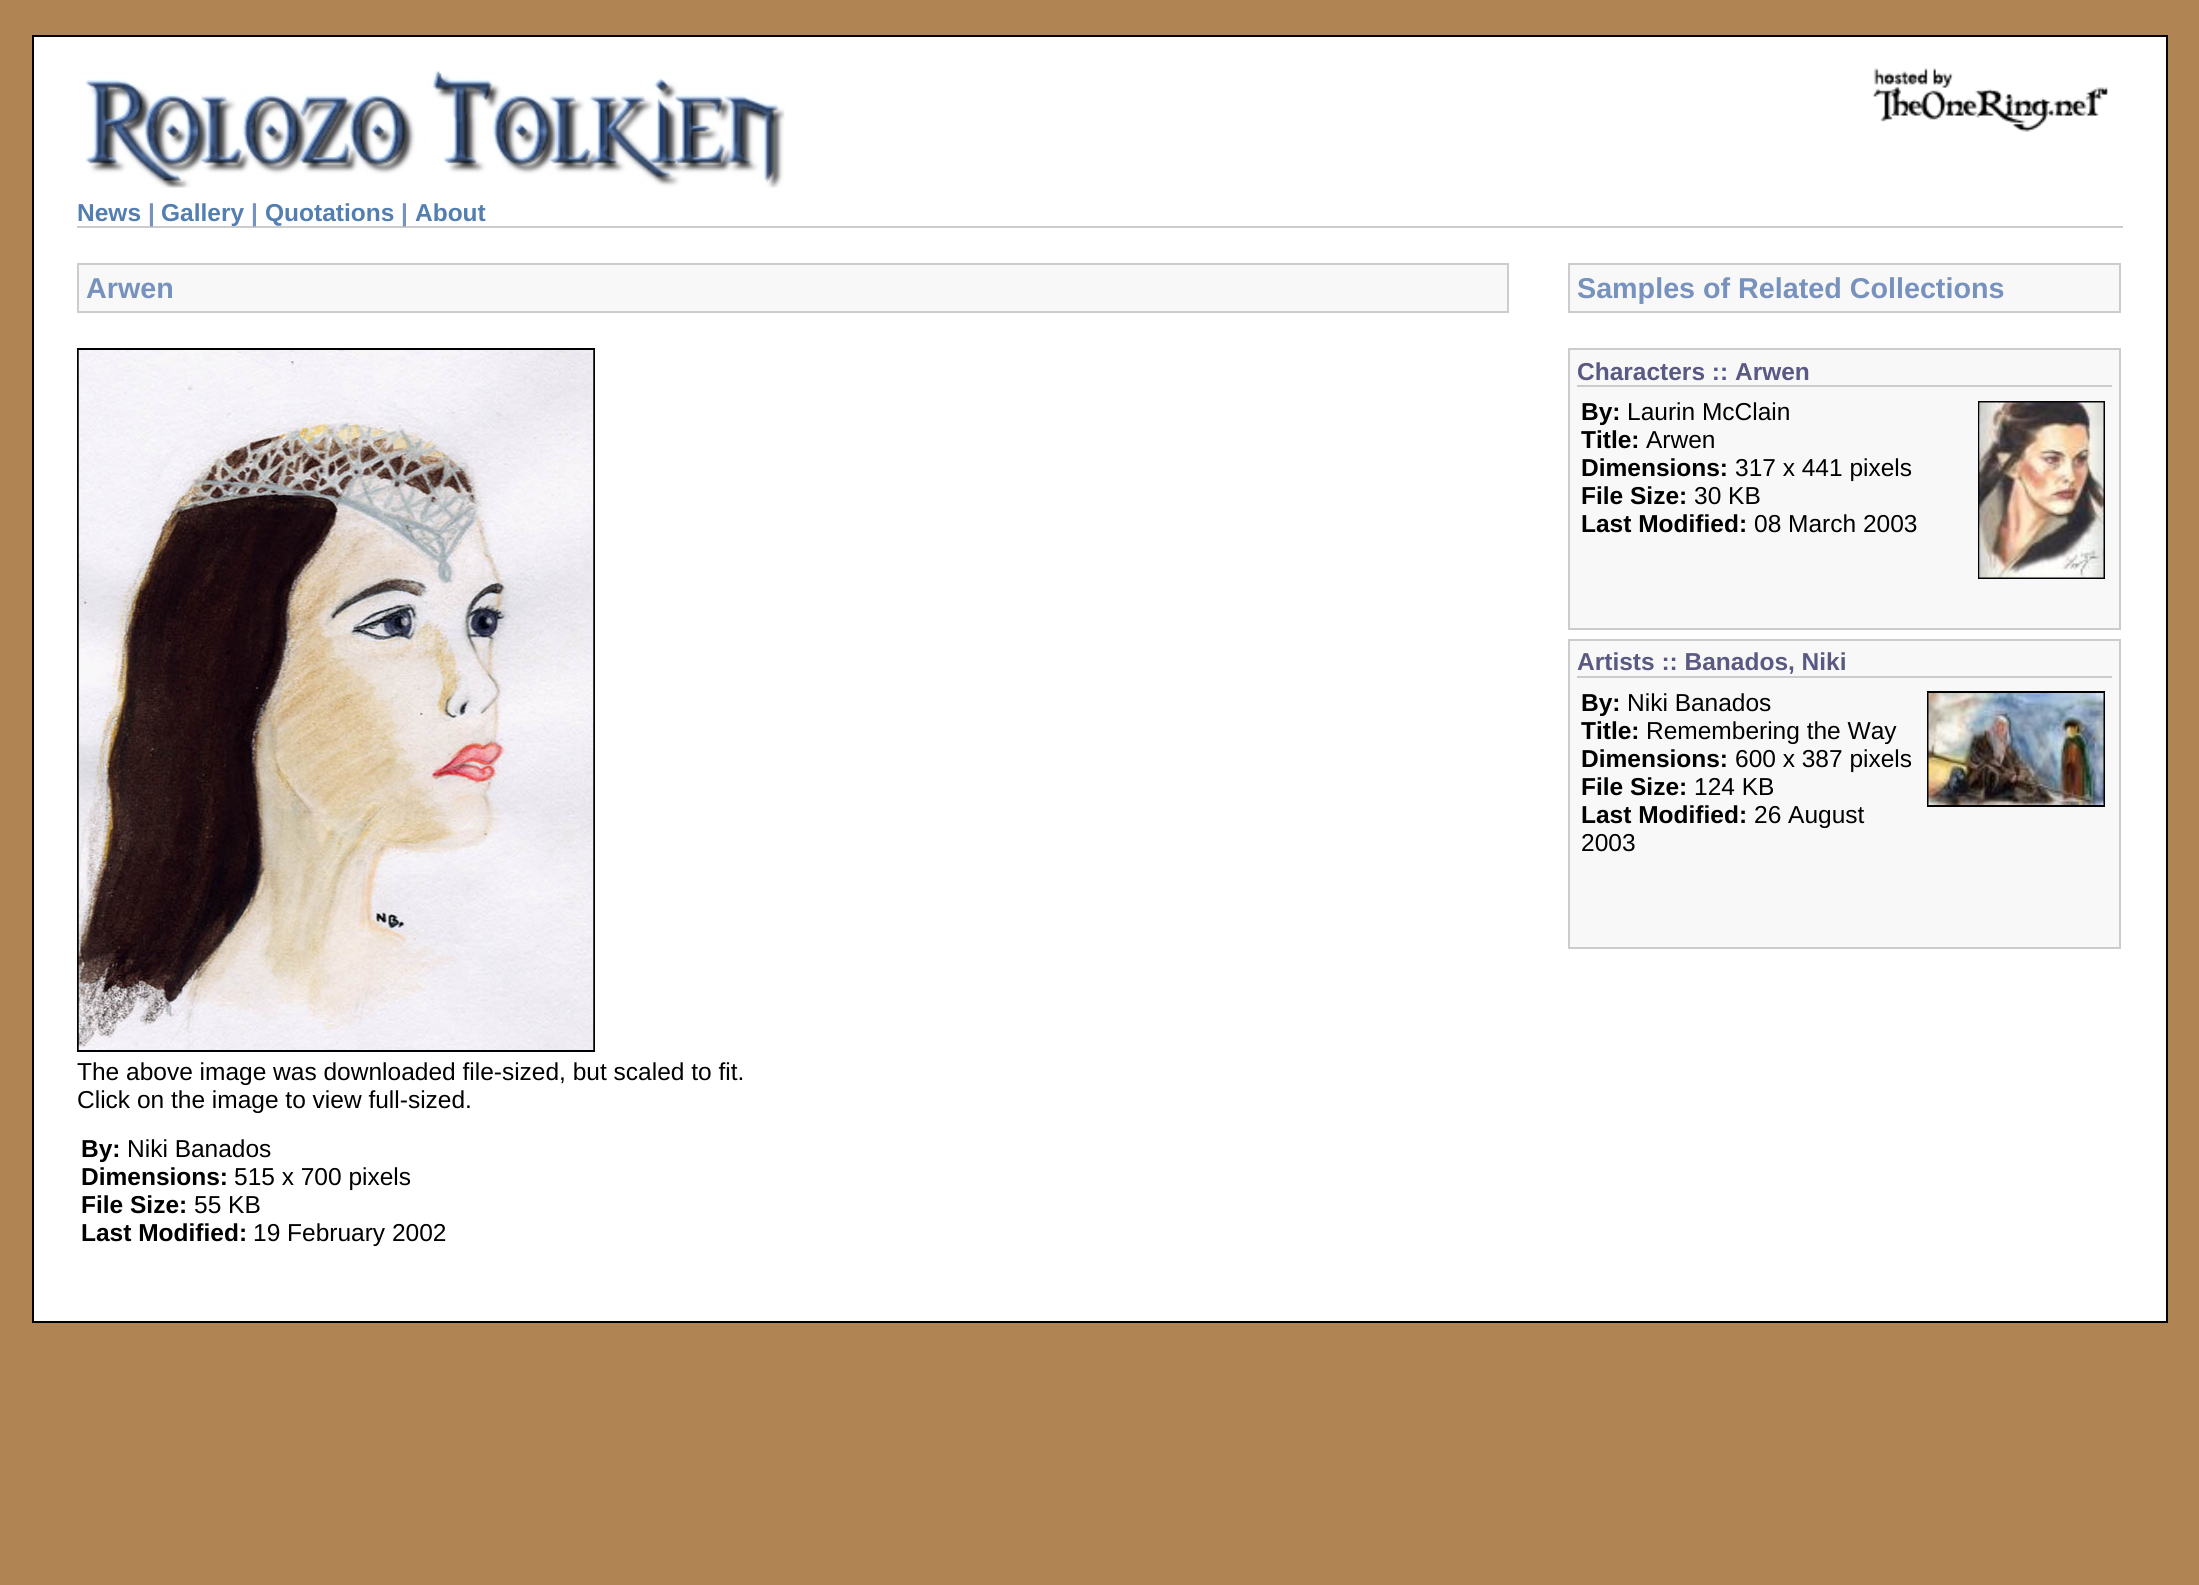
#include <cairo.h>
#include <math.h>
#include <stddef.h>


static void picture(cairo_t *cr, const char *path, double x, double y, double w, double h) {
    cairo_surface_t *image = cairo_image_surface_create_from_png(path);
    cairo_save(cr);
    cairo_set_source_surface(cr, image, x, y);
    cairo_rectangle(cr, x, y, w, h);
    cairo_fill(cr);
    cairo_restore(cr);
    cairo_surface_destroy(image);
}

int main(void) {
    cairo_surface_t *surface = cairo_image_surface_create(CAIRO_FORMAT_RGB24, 2199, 1585);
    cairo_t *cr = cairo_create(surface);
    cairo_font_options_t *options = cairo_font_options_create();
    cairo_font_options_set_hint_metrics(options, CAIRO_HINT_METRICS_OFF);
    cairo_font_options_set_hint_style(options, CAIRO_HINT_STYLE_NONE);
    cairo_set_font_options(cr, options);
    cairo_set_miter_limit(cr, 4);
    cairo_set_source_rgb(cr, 0.69, 0.522, 0.325);
    cairo_paint(cr);
    cairo_set_source_rgb(cr, 1, 1, 1);
    cairo_rectangle(cr, 33, 36, 2134, 1286);
    cairo_fill_preserve(cr);
    cairo_set_source_rgb(cr, 0, 0, 0);
    cairo_stroke(cr);
    picture(cr, "img1.png", 85, 70, 700, 118);
    picture(cr, "img2.png", 1872, 68, 236, 64);
    cairo_set_source_rgb(cr, 0.8, 0.8, 0.8);
    cairo_rectangle(cr, 77, 226, 2046, 2);
    cairo_fill(cr);
    cairo_select_font_face(cr, "Liberation Sans", CAIRO_FONT_SLANT_NORMAL, CAIRO_FONT_WEIGHT_BOLD);
    cairo_set_font_size(cr, 24.5);
    cairo_set_source_rgb(cr, 0.325, 0.494, 0.69);
    cairo_move_to(cr, 77, 221);
    cairo_show_text(cr, "News");
    cairo_set_source_rgb(cr, 0.467, 0.573, 0.737);
    cairo_move_to(cr, 148, 221);
    cairo_show_text(cr, "|");
    cairo_set_source_rgb(cr, 0.325, 0.494, 0.69);
    cairo_move_to(cr, 161, 221);
    cairo_show_text(cr, "Gallery");
    cairo_set_source_rgb(cr, 0.467, 0.573, 0.737);
    cairo_move_to(cr, 251, 221);
    cairo_show_text(cr, "|");
    cairo_set_source_rgb(cr, 0.325, 0.494, 0.69);
    cairo_move_to(cr, 265, 221);
    cairo_show_text(cr, "Quotations");
    cairo_set_source_rgb(cr, 0.467, 0.573, 0.737);
    cairo_move_to(cr, 401, 221);
    cairo_show_text(cr, "|");
    cairo_set_source_rgb(cr, 0.325, 0.494, 0.69);
    cairo_move_to(cr, 415, 221);
    cairo_show_text(cr, "About");
    cairo_set_source_rgb(cr, 0.969, 0.969, 0.969);
    cairo_rectangle(cr, 78, 264, 1430, 48);
    cairo_fill_preserve(cr);
    cairo_set_source_rgb(cr, 0.8, 0.8, 0.8);
    cairo_stroke(cr);
    cairo_set_font_size(cr, 28.7);
    cairo_set_source_rgb(cr, 0.467, 0.573, 0.737);
    cairo_move_to(cr, 86, 298);
    cairo_show_text(cr, "Arwen");
    cairo_rectangle(cr, 78, 349, 516, 702);
    cairo_set_source_rgb(cr, 0, 0, 0);
    cairo_stroke(cr);
    picture(cr, "img3.png", 78, 350, 516, 700);
    cairo_select_font_face(cr, "Liberation Sans", CAIRO_FONT_SLANT_NORMAL, CAIRO_FONT_WEIGHT_NORMAL);
    cairo_set_font_size(cr, 24.5);
    cairo_move_to(cr, 77, 1080);
    cairo_show_text(cr, "The above image was downloaded file-sized, but scaled to fit.");
    cairo_move_to(cr, 77, 1108);
    cairo_show_text(cr, "Click on the image to view full-sized.");
    cairo_select_font_face(cr, "Liberation Sans", CAIRO_FONT_SLANT_NORMAL, CAIRO_FONT_WEIGHT_BOLD);
    cairo_move_to(cr, 81, 1157);
    cairo_show_text(cr, "By:");
    cairo_select_font_face(cr, "Liberation Sans", CAIRO_FONT_SLANT_NORMAL, CAIRO_FONT_WEIGHT_NORMAL);
    cairo_move_to(cr, 127, 1157);
    cairo_show_text(cr, "Niki Banados");
    cairo_select_font_face(cr, "Liberation Sans", CAIRO_FONT_SLANT_NORMAL, CAIRO_FONT_WEIGHT_BOLD);
    cairo_move_to(cr, 81, 1185);
    cairo_show_text(cr, "Dimensions:");
    cairo_select_font_face(cr, "Liberation Sans", CAIRO_FONT_SLANT_NORMAL, CAIRO_FONT_WEIGHT_NORMAL);
    cairo_move_to(cr, 234, 1185);
    cairo_show_text(cr, "515 x 700 pixels");
    cairo_select_font_face(cr, "Liberation Sans", CAIRO_FONT_SLANT_NORMAL, CAIRO_FONT_WEIGHT_BOLD);
    cairo_move_to(cr, 81, 1213);
    cairo_show_text(cr, "File Size:");
    cairo_select_font_face(cr, "Liberation Sans", CAIRO_FONT_SLANT_NORMAL, CAIRO_FONT_WEIGHT_NORMAL);
    cairo_move_to(cr, 194, 1213);
    cairo_show_text(cr, "55 KB");
    cairo_select_font_face(cr, "Liberation Sans", CAIRO_FONT_SLANT_NORMAL, CAIRO_FONT_WEIGHT_BOLD);
    cairo_move_to(cr, 81, 1241);
    cairo_show_text(cr, "Last Modified:");
    cairo_select_font_face(cr, "Liberation Sans", CAIRO_FONT_SLANT_NORMAL, CAIRO_FONT_WEIGHT_NORMAL);
    cairo_move_to(cr, 253, 1241);
    cairo_show_text(cr, "19 February 2002");
    cairo_set_source_rgb(cr, 0.969, 0.969, 0.969);
    cairo_rectangle(cr, 1569, 264, 551, 48);
    cairo_fill_preserve(cr);
    cairo_set_source_rgb(cr, 0.8, 0.8, 0.8);
    cairo_stroke(cr);
    cairo_select_font_face(cr, "Liberation Sans", CAIRO_FONT_SLANT_NORMAL, CAIRO_FONT_WEIGHT_BOLD);
    cairo_set_font_size(cr, 28.7);
    cairo_set_source_rgb(cr, 0.467, 0.573, 0.737);
    cairo_move_to(cr, 1577, 298);
    cairo_show_text(cr, "Samples of Related Collections");
    cairo_set_source_rgb(cr, 0.969, 0.969, 0.969);
    cairo_rectangle(cr, 1569, 349, 551, 280);
    cairo_fill_preserve(cr);
    cairo_set_source_rgb(cr, 0.8, 0.8, 0.8);
    cairo_stroke(cr);
    cairo_rectangle(cr, 1577, 385, 535, 2);
    cairo_fill(cr);
    cairo_set_font_size(cr, 24.5);
    cairo_set_source_rgb(cr, 0.349, 0.349, 0.514);
    cairo_move_to(cr, 1577, 380);
    cairo_show_text(cr, "Characters :: Arwen");
    cairo_set_source_rgb(cr, 0, 0, 0);
    cairo_move_to(cr, 1581, 420);
    cairo_show_text(cr, "By:");
    cairo_select_font_face(cr, "Liberation Sans", CAIRO_FONT_SLANT_NORMAL, CAIRO_FONT_WEIGHT_NORMAL);
    cairo_move_to(cr, 1627, 420);
    cairo_show_text(cr, "Laurin McClain");
    cairo_select_font_face(cr, "Liberation Sans", CAIRO_FONT_SLANT_NORMAL, CAIRO_FONT_WEIGHT_BOLD);
    cairo_move_to(cr, 1581, 448);
    cairo_show_text(cr, "Title:");
    cairo_select_font_face(cr, "Liberation Sans", CAIRO_FONT_SLANT_NORMAL, CAIRO_FONT_WEIGHT_NORMAL);
    cairo_move_to(cr, 1646, 448);
    cairo_show_text(cr, "Arwen");
    cairo_select_font_face(cr, "Liberation Sans", CAIRO_FONT_SLANT_NORMAL, CAIRO_FONT_WEIGHT_BOLD);
    cairo_move_to(cr, 1581, 476);
    cairo_show_text(cr, "Dimensions:");
    cairo_select_font_face(cr, "Liberation Sans", CAIRO_FONT_SLANT_NORMAL, CAIRO_FONT_WEIGHT_NORMAL);
    cairo_move_to(cr, 1735, 476);
    cairo_show_text(cr, "317 x 441 pixels");
    cairo_select_font_face(cr, "Liberation Sans", CAIRO_FONT_SLANT_NORMAL, CAIRO_FONT_WEIGHT_BOLD);
    cairo_move_to(cr, 1581, 504);
    cairo_show_text(cr, "File Size:");
    cairo_select_font_face(cr, "Liberation Sans", CAIRO_FONT_SLANT_NORMAL, CAIRO_FONT_WEIGHT_NORMAL);
    cairo_move_to(cr, 1694, 504);
    cairo_show_text(cr, "30 KB");
    cairo_select_font_face(cr, "Liberation Sans", CAIRO_FONT_SLANT_NORMAL, CAIRO_FONT_WEIGHT_BOLD);
    cairo_move_to(cr, 1581, 532);
    cairo_show_text(cr, "Last Modified:");
    cairo_select_font_face(cr, "Liberation Sans", CAIRO_FONT_SLANT_NORMAL, CAIRO_FONT_WEIGHT_NORMAL);
    cairo_move_to(cr, 1754, 532);
    cairo_show_text(cr, "08 March 2003");
    cairo_rectangle(cr, 1979, 402, 125, 176);
    cairo_stroke(cr);
    picture(cr, "img4.png", 1979, 402, 125, 176);
    cairo_set_source_rgb(cr, 0.969, 0.969, 0.969);
    cairo_rectangle(cr, 1569, 640, 551, 308);
    cairo_fill_preserve(cr);
    cairo_set_source_rgb(cr, 0.8, 0.8, 0.8);
    cairo_stroke(cr);
    cairo_rectangle(cr, 1577, 676, 535, 2);
    cairo_fill(cr);
    cairo_select_font_face(cr, "Liberation Sans", CAIRO_FONT_SLANT_NORMAL, CAIRO_FONT_WEIGHT_BOLD);
    cairo_set_source_rgb(cr, 0.349, 0.349, 0.514);
    cairo_move_to(cr, 1577, 670);
    cairo_show_text(cr, "Artists :: Banados, Niki");
    cairo_set_source_rgb(cr, 0, 0, 0);
    cairo_move_to(cr, 1581, 711);
    cairo_show_text(cr, "By:");
    cairo_select_font_face(cr, "Liberation Sans", CAIRO_FONT_SLANT_NORMAL, CAIRO_FONT_WEIGHT_NORMAL);
    cairo_move_to(cr, 1627, 711);
    cairo_show_text(cr, "Niki Banados");
    cairo_select_font_face(cr, "Liberation Sans", CAIRO_FONT_SLANT_NORMAL, CAIRO_FONT_WEIGHT_BOLD);
    cairo_move_to(cr, 1581, 739);
    cairo_show_text(cr, "Title:");
    cairo_select_font_face(cr, "Liberation Sans", CAIRO_FONT_SLANT_NORMAL, CAIRO_FONT_WEIGHT_NORMAL);
    cairo_move_to(cr, 1646, 739);
    cairo_show_text(cr, "Remembering the Way");
    cairo_select_font_face(cr, "Liberation Sans", CAIRO_FONT_SLANT_NORMAL, CAIRO_FONT_WEIGHT_BOLD);
    cairo_move_to(cr, 1581, 767);
    cairo_show_text(cr, "Dimensions:");
    cairo_select_font_face(cr, "Liberation Sans", CAIRO_FONT_SLANT_NORMAL, CAIRO_FONT_WEIGHT_NORMAL);
    cairo_move_to(cr, 1735, 767);
    cairo_show_text(cr, "600 x 387 pixels");
    cairo_select_font_face(cr, "Liberation Sans", CAIRO_FONT_SLANT_NORMAL, CAIRO_FONT_WEIGHT_BOLD);
    cairo_move_to(cr, 1581, 795);
    cairo_show_text(cr, "File Size:");
    cairo_select_font_face(cr, "Liberation Sans", CAIRO_FONT_SLANT_NORMAL, CAIRO_FONT_WEIGHT_NORMAL);
    cairo_move_to(cr, 1694, 795);
    cairo_show_text(cr, "124 KB");
    cairo_select_font_face(cr, "Liberation Sans", CAIRO_FONT_SLANT_NORMAL, CAIRO_FONT_WEIGHT_BOLD);
    cairo_move_to(cr, 1581, 823);
    cairo_show_text(cr, "Last Modified:");
    cairo_select_font_face(cr, "Liberation Sans", CAIRO_FONT_SLANT_NORMAL, CAIRO_FONT_WEIGHT_NORMAL);
    cairo_move_to(cr, 1754, 823);
    cairo_show_text(cr, "26 August");
    cairo_move_to(cr, 1581, 851);
    cairo_show_text(cr, "2003");
    cairo_rectangle(cr, 1928, 692, 176, 114);
    cairo_stroke(cr);
    picture(cr, "img5.png", 1928, 693, 176, 112);
    cairo_surface_write_to_png(surface, "page.png");
    cairo_font_options_destroy(options);
    cairo_destroy(cr);
    cairo_surface_destroy(surface);
    return 0;
}
